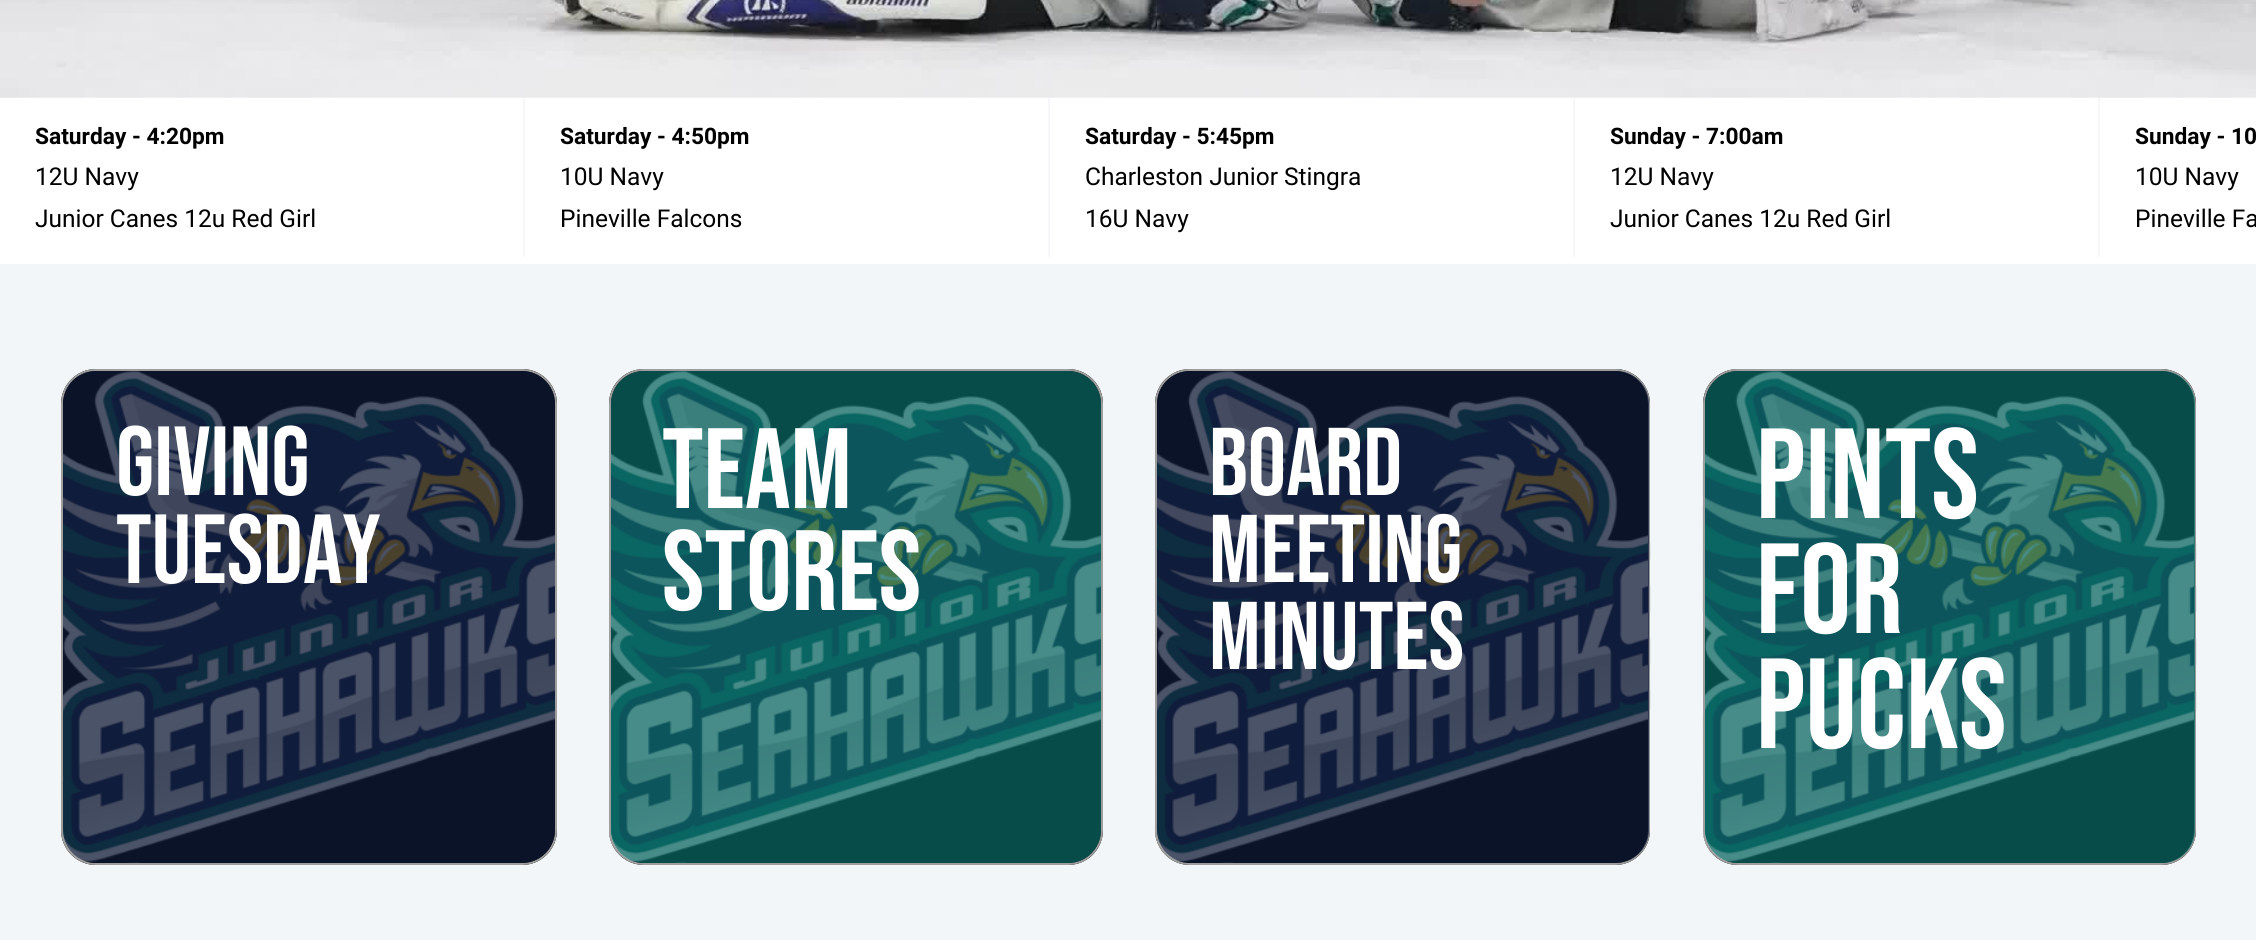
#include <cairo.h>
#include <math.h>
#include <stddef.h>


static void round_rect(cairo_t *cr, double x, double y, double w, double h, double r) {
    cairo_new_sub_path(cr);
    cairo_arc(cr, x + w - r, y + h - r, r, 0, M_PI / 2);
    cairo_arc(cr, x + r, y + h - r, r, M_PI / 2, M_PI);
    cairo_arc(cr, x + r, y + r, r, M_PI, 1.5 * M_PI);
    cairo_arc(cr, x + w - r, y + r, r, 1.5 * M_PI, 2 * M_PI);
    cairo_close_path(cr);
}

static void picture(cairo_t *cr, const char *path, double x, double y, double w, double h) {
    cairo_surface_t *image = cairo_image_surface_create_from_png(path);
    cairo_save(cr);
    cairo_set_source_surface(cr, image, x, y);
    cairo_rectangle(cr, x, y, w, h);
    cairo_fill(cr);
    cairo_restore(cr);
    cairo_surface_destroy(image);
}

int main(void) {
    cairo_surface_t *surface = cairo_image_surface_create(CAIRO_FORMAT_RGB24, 2256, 940);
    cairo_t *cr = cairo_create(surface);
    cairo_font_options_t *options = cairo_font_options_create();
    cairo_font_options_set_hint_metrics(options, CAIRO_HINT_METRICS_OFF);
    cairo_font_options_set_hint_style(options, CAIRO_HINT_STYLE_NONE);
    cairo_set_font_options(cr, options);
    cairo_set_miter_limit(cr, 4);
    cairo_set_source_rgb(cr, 1, 1, 1);
    cairo_paint(cr);
    picture(cr, "img1.png", 0, 0, 2256, 98);
    cairo_set_source_rgb(cr, 0.965, 0.961, 0.98);
    cairo_rectangle(cr, 523, 98, 2, 159);
    cairo_fill(cr);
    cairo_select_font_face(cr, "Roboto", CAIRO_FONT_SLANT_NORMAL, CAIRO_FONT_WEIGHT_BOLD);
    cairo_set_font_size(cr, 22.75);
    cairo_set_source_rgb(cr, 0, 0, 0);
    cairo_move_to(cr, 35, 144);
    cairo_show_text(cr, "Saturday - 4:20pm");
    cairo_select_font_face(cr, "Roboto", CAIRO_FONT_SLANT_NORMAL, CAIRO_FONT_WEIGHT_NORMAL);
    cairo_set_font_size(cr, 24.5);
    cairo_move_to(cr, 35, 185);
    cairo_show_text(cr, "12U Navy");
    cairo_move_to(cr, 35, 227);
    cairo_show_text(cr, "Junior Canes 12u Red Girl");
    cairo_set_source_rgb(cr, 0.965, 0.961, 0.98);
    cairo_rectangle(cr, 1048, 98, 2, 159);
    cairo_fill(cr);
    cairo_select_font_face(cr, "Roboto", CAIRO_FONT_SLANT_NORMAL, CAIRO_FONT_WEIGHT_BOLD);
    cairo_set_font_size(cr, 22.75);
    cairo_set_source_rgb(cr, 0, 0, 0);
    cairo_move_to(cr, 560, 144);
    cairo_show_text(cr, "Saturday - 4:50pm");
    cairo_select_font_face(cr, "Roboto", CAIRO_FONT_SLANT_NORMAL, CAIRO_FONT_WEIGHT_NORMAL);
    cairo_set_font_size(cr, 24.5);
    cairo_move_to(cr, 560, 185);
    cairo_show_text(cr, "10U Navy");
    cairo_move_to(cr, 560, 227);
    cairo_show_text(cr, "Pineville Falcons");
    cairo_set_source_rgb(cr, 0.965, 0.961, 0.98);
    cairo_rectangle(cr, 1573, 98, 2, 159);
    cairo_fill(cr);
    cairo_select_font_face(cr, "Roboto", CAIRO_FONT_SLANT_NORMAL, CAIRO_FONT_WEIGHT_BOLD);
    cairo_set_font_size(cr, 22.75);
    cairo_set_source_rgb(cr, 0, 0, 0);
    cairo_move_to(cr, 1085, 144);
    cairo_show_text(cr, "Saturday - 5:45pm");
    cairo_select_font_face(cr, "Roboto", CAIRO_FONT_SLANT_NORMAL, CAIRO_FONT_WEIGHT_NORMAL);
    cairo_set_font_size(cr, 24.5);
    cairo_move_to(cr, 1085, 185);
    cairo_show_text(cr, "Charleston Junior Stingra");
    cairo_move_to(cr, 1085, 227);
    cairo_show_text(cr, "16U Navy");
    cairo_set_source_rgb(cr, 0.965, 0.961, 0.98);
    cairo_rectangle(cr, 2098, 98, 2, 159);
    cairo_fill(cr);
    cairo_select_font_face(cr, "Roboto", CAIRO_FONT_SLANT_NORMAL, CAIRO_FONT_WEIGHT_BOLD);
    cairo_set_font_size(cr, 22.75);
    cairo_set_source_rgb(cr, 0, 0, 0);
    cairo_move_to(cr, 1610, 144);
    cairo_show_text(cr, "Sunday - 7:00am");
    cairo_select_font_face(cr, "Roboto", CAIRO_FONT_SLANT_NORMAL, CAIRO_FONT_WEIGHT_NORMAL);
    cairo_set_font_size(cr, 24.5);
    cairo_move_to(cr, 1610, 185);
    cairo_show_text(cr, "12U Navy");
    cairo_move_to(cr, 1610, 227);
    cairo_show_text(cr, "Junior Canes 12u Red Girl");
    cairo_select_font_face(cr, "Roboto", CAIRO_FONT_SLANT_NORMAL, CAIRO_FONT_WEIGHT_BOLD);
    cairo_set_font_size(cr, 22.75);
    cairo_move_to(cr, 2135, 144);
    cairo_show_text(cr, "Sunday - 10");
    cairo_select_font_face(cr, "Roboto", CAIRO_FONT_SLANT_NORMAL, CAIRO_FONT_WEIGHT_NORMAL);
    cairo_set_font_size(cr, 24.5);
    cairo_move_to(cr, 2135, 185);
    cairo_show_text(cr, "10U Navy");
    cairo_move_to(cr, 2135, 227);
    cairo_show_text(cr, "Pineville Fa");
    cairo_set_source_rgb(cr, 0.949, 0.961, 0.969);
    cairo_rectangle(cr, 0, 264, 2256, 676);
    cairo_fill(cr);
    cairo_set_source_rgb(cr, 0, 0, 0);
    round_rect(cr, 61, 369, 496, 496, 35);
    cairo_fill(cr);
    picture(cr, "img2.png", 61, 369, 494, 494);
    round_rect(cr, 62, 370, 494, 494, 34);
    cairo_set_source_rgb(cr, 0.62, 0.62, 0.62);
    cairo_stroke(cr);
    cairo_set_source_rgba(cr, 0.059, 0.102, 0.212, 0.75);
    round_rect(cr, 63, 371, 492, 492, 33);
    cairo_fill(cr);
    cairo_select_font_face(cr, "Bebas Neue", CAIRO_FONT_SLANT_NORMAL, CAIRO_FONT_WEIGHT_NORMAL);
    cairo_set_font_size(cr, 98);
    cairo_set_source_rgb(cr, 1, 1, 1);
    cairo_move_to(cr, 116, 495);
    cairo_show_text(cr, "GIVING");
    cairo_move_to(cr, 116, 583);
    cairo_show_text(cr, "TUESDAY");
    cairo_set_source_rgb(cr, 0, 0, 0);
    round_rect(cr, 609, 369, 494, 496, 35);
    cairo_fill(cr);
    picture(cr, "img3.png", 609, 369, 492, 494);
    round_rect(cr, 610, 370, 492, 494, 34);
    cairo_set_source_rgb(cr, 0.62, 0.62, 0.62);
    cairo_stroke(cr);
    cairo_set_source_rgba(cr, 0.039, 0.4, 0.384, 0.75);
    round_rect(cr, 611, 371, 490, 492, 33);
    cairo_fill(cr);
    cairo_set_font_size(cr, 114);
    cairo_set_source_rgb(cr, 1, 1, 1);
    cairo_move_to(cr, 662, 508);
    cairo_show_text(cr, "TEAM");
    cairo_move_to(cr, 662, 610);
    cairo_show_text(cr, "STORES");
    cairo_set_source_rgb(cr, 0, 0, 0);
    round_rect(cr, 1155, 369, 495, 496, 35);
    cairo_fill(cr);
    picture(cr, "img4.png", 1155, 369, 496, 494);
    round_rect(cr, 1156, 370, 493, 494, 34);
    cairo_set_source_rgb(cr, 0.62, 0.62, 0.62);
    cairo_stroke(cr);
    cairo_set_source_rgba(cr, 0.059, 0.102, 0.212, 0.75);
    round_rect(cr, 1157, 371, 492, 492, 33);
    cairo_fill(cr);
    cairo_set_font_size(cr, 96);
    cairo_set_source_rgb(cr, 1, 1, 1);
    cairo_move_to(cr, 1209, 495);
    cairo_show_text(cr, "BOARD");
    cairo_move_to(cr, 1209, 582);
    cairo_show_text(cr, "MEETING");
    cairo_move_to(cr, 1209, 669);
    cairo_show_text(cr, "MINUTES");
    cairo_set_source_rgb(cr, 0, 0, 0);
    round_rect(cr, 1703, 369, 493, 496, 35);
    cairo_fill(cr);
    picture(cr, "img5.png", 1702, 369, 495, 494);
    round_rect(cr, 1704, 370, 491, 494, 34);
    cairo_set_source_rgb(cr, 0.62, 0.62, 0.62);
    cairo_stroke(cr);
    cairo_set_source_rgba(cr, 0.039, 0.4, 0.384, 0.75);
    round_rect(cr, 1705, 371, 490, 492, 33);
    cairo_fill(cr);
    cairo_set_font_size(cr, 128);
    cairo_set_source_rgb(cr, 1, 1, 1);
    cairo_move_to(cr, 1756, 518);
    cairo_show_text(cr, "PINTS");
    cairo_move_to(cr, 1756, 633);
    cairo_show_text(cr, "FOR");
    cairo_move_to(cr, 1756, 748);
    cairo_show_text(cr, "PUCKS");
    cairo_surface_write_to_png(surface, "page.png");
    cairo_font_options_destroy(options);
    cairo_destroy(cr);
    cairo_surface_destroy(surface);
    return 0;
}
